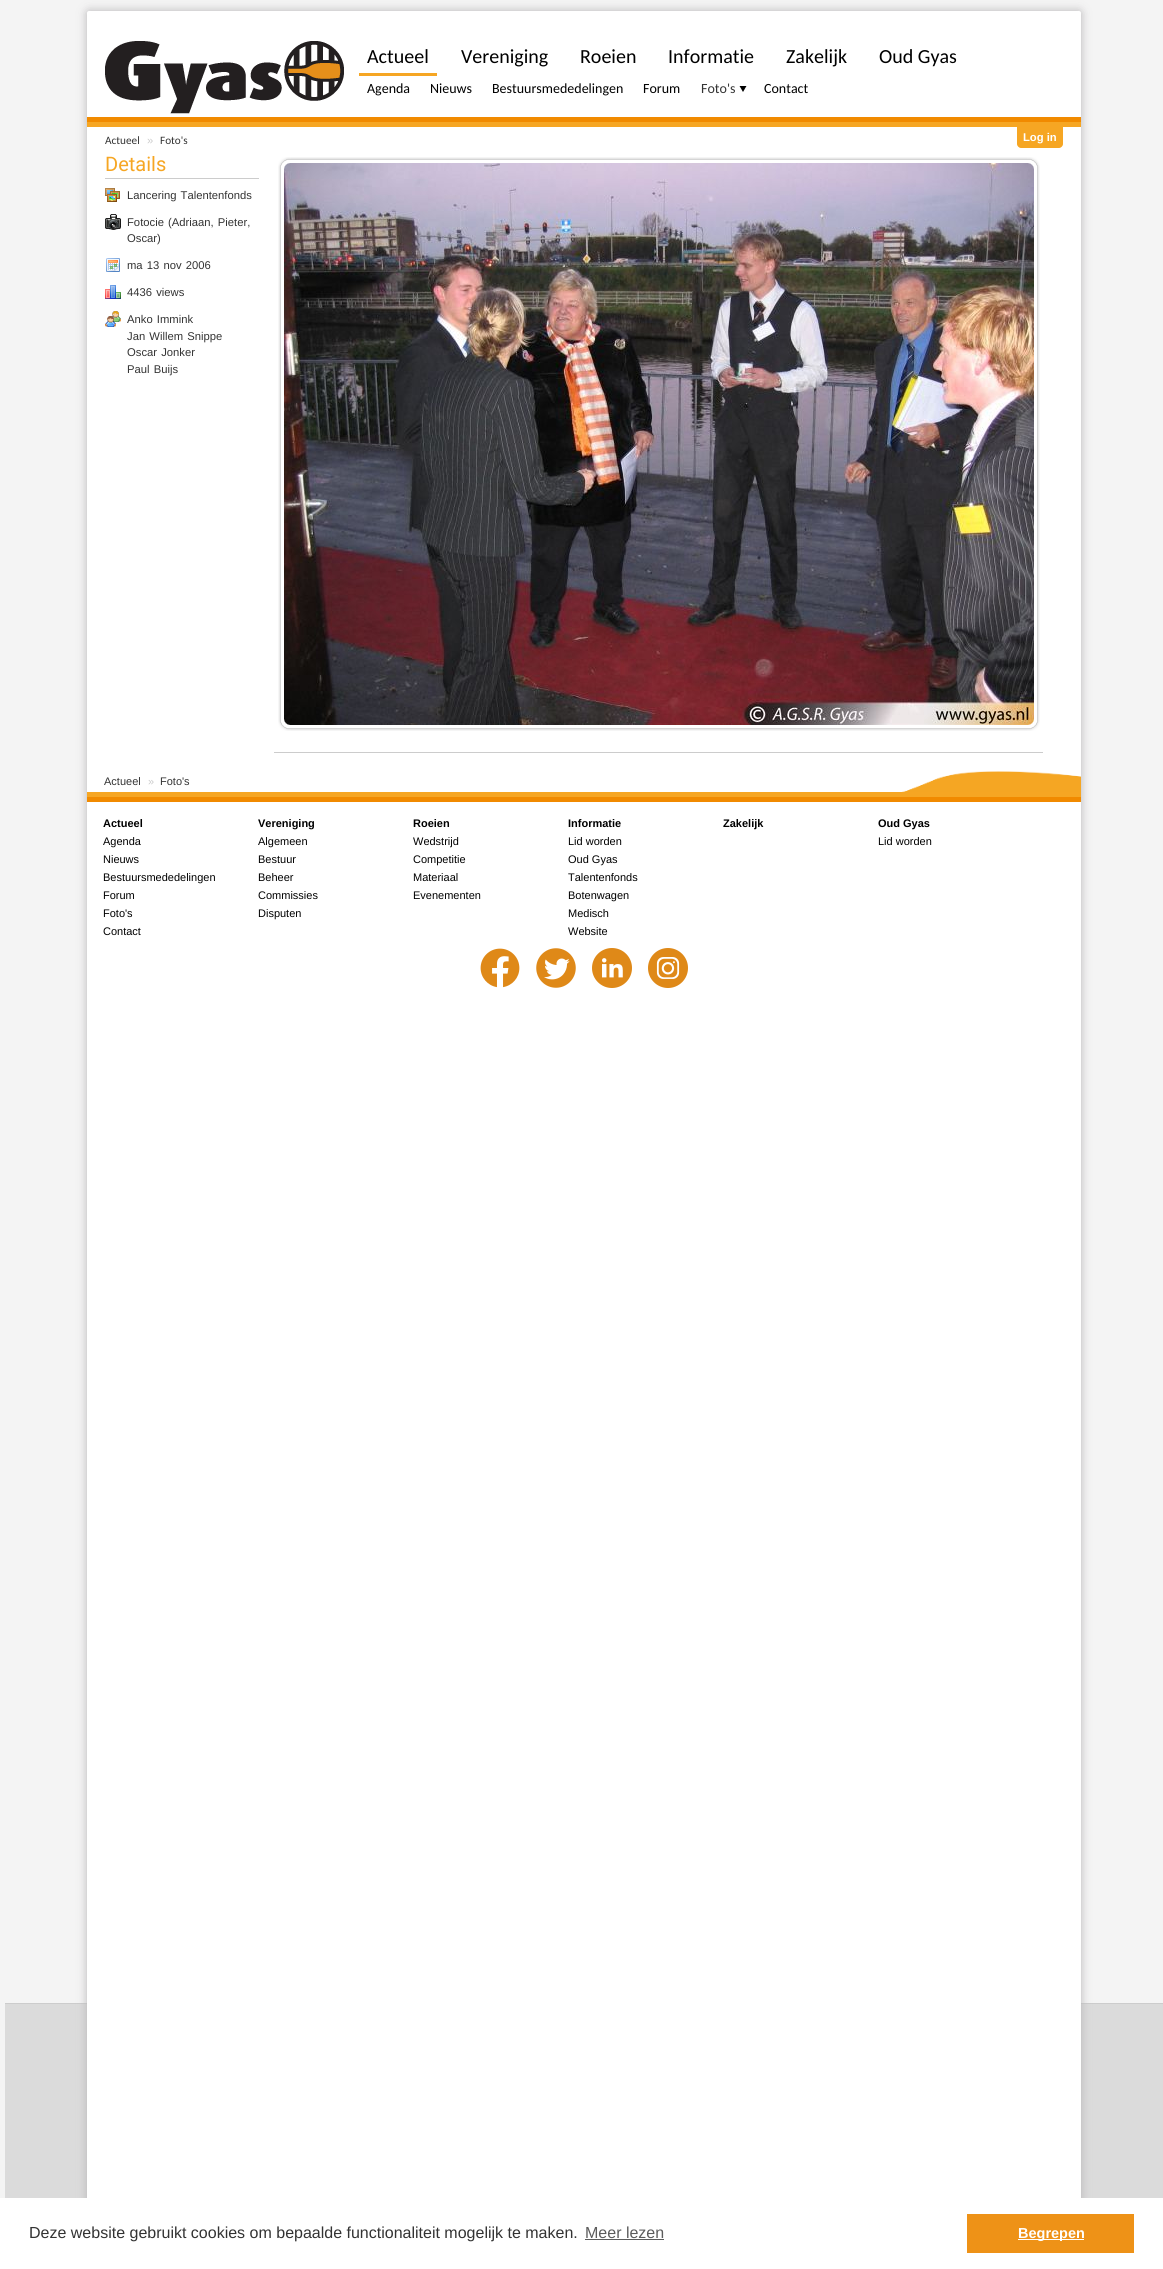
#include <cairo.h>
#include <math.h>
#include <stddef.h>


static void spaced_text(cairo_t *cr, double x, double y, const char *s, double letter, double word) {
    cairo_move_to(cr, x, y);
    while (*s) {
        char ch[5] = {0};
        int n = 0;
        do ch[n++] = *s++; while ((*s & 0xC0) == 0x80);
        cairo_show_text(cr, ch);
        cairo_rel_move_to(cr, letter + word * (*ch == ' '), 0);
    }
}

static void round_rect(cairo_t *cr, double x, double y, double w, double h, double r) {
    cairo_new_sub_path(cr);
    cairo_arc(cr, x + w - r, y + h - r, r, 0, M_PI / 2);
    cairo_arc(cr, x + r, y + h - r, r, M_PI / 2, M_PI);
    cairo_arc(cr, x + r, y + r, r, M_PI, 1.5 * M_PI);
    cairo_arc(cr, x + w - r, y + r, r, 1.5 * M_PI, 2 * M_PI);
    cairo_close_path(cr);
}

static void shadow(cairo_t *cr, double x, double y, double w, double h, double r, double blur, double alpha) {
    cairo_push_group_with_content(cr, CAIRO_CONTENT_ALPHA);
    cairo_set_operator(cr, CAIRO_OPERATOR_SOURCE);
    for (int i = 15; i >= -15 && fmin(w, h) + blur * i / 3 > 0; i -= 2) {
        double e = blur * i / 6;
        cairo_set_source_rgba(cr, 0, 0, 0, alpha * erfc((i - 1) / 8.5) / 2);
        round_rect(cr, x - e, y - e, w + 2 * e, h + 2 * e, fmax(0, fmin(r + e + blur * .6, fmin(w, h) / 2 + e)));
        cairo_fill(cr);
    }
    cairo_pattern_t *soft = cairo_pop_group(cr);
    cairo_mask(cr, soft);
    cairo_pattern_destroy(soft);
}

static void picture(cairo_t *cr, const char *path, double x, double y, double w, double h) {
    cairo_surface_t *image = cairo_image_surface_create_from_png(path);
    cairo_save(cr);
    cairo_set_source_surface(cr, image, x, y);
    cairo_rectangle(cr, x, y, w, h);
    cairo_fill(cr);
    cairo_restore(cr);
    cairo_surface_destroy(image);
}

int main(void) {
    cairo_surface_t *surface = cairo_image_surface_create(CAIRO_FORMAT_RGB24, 1163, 2269);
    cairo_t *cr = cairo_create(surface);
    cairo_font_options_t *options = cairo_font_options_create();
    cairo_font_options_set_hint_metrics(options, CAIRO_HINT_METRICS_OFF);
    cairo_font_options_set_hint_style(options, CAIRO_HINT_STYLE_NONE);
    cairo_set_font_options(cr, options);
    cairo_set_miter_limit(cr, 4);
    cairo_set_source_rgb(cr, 0.957, 0.957, 0.957);
    cairo_paint(cr);
    cairo_set_source_rgb(cr, 0.859, 0.859, 0.859);
    cairo_rectangle(cr, 5, 2004, 1158, 194);
    cairo_fill(cr);
    cairo_set_source_rgb(cr, 0.8, 0.8, 0.8);
    cairo_rectangle(cr, 5, 2003, 1158, 1);
    cairo_fill(cr);
    cairo_set_source_rgb(cr, 0.722, 0.714, 0.722);
    shadow(cr, 87, 11, 994, 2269, 2, 5, 1);
    cairo_set_source_rgb(cr, 1, 1, 1);
    round_rect(cr, 87, 11, 994, 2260, 2);
    cairo_fill(cr);
    picture(cr, "img1.png", 105, 41, 239, 73);
    cairo_set_source_rgb(cr, 0.961, 0.651, 0.137);
    cairo_rectangle(cr, 359, 73, 78, 3);
    cairo_fill(cr);
    cairo_select_font_face(cr, "Carlito", CAIRO_FONT_SLANT_NORMAL, CAIRO_FONT_WEIGHT_NORMAL);
    cairo_set_font_size(cr, 20);
    cairo_set_source_rgb(cr, 0, 0, 0);
    cairo_move_to(cr, 367, 63);
    cairo_show_text(cr, "Actueel");
    cairo_set_font_size(cr, 14);
    cairo_move_to(cr, 367, 93);
    cairo_show_text(cr, "Agenda");
    cairo_move_to(cr, 430, 93);
    cairo_show_text(cr, "Nieuws");
    cairo_move_to(cr, 492, 93);
    cairo_show_text(cr, "Bestuursmededelingen");
    cairo_move_to(cr, 643, 93);
    cairo_show_text(cr, "Forum");
    picture(cr, "img2.png", 739, 86, 8, 6);
    cairo_set_source_rgb(cr, 0.2, 0.2, 0.2);
    cairo_move_to(cr, 701, 93);
    cairo_show_text(cr, "Foto's");
    cairo_set_source_rgb(cr, 0, 0, 0);
    cairo_move_to(cr, 764, 93);
    cairo_show_text(cr, "Contact");
    cairo_set_font_size(cr, 20);
    cairo_move_to(cr, 461, 63);
    cairo_show_text(cr, "Vereniging");
    cairo_move_to(cr, 580, 63);
    cairo_show_text(cr, "Roeien");
    cairo_move_to(cr, 668, 63);
    cairo_show_text(cr, "Informatie");
    cairo_move_to(cr, 786, 63);
    cairo_show_text(cr, "Zakelijk");
    cairo_move_to(cr, 879, 63);
    cairo_show_text(cr, "Oud Gyas");
    cairo_set_source_rgb(cr, 0.945, 0.541, 0);
    cairo_rectangle(cr, 87, 117, 994, 5);
    cairo_fill(cr);
    cairo_set_source_rgb(cr, 0.961, 0.651, 0.137);
    cairo_rectangle(cr, 87, 122, 994, 5);
    cairo_fill(cr);
    cairo_set_font_size(cr, 11.25);
    cairo_set_source_rgb(cr, 0.2, 0.2, 0.2);
    cairo_move_to(cr, 105, 144);
    cairo_show_text(cr, "Actueel");
    cairo_select_font_face(cr, "Liberation Sans", CAIRO_FONT_SLANT_NORMAL, CAIRO_FONT_WEIGHT_NORMAL);
    cairo_set_source_rgb(cr, 0.8, 0.8, 0.8);
    cairo_move_to(cr, 147, 144);
    cairo_show_text(cr, "»");
    cairo_select_font_face(cr, "Carlito", CAIRO_FONT_SLANT_NORMAL, CAIRO_FONT_WEIGHT_NORMAL);
    cairo_set_source_rgb(cr, 0.2, 0.2, 0.2);
    cairo_move_to(cr, 160, 144);
    cairo_show_text(cr, "Foto's");
    cairo_set_source_rgb(cr, 0.961, 0.651, 0.137);
    cairo_new_path(cr);
    cairo_move_to(cr, 1017, 126);
    cairo_line_to(cr, 1063, 126);
    cairo_line_to(cr, 1063, 144);
    cairo_curve_to(cr, 1063, 146, 1061, 148, 1059, 148);
    cairo_line_to(cr, 1021, 148);
    cairo_curve_to(cr, 1019, 148, 1017, 146, 1017, 144);
    cairo_close_path(cr);
    cairo_fill(cr);
    cairo_select_font_face(cr, "Liberation Sans", CAIRO_FONT_SLANT_NORMAL, CAIRO_FONT_WEIGHT_BOLD);
    cairo_set_source_rgb(cr, 1, 1, 1);
    cairo_move_to(cr, 1023, 141);
    cairo_show_text(cr, "Log in");
    cairo_set_source_rgb(cr, 0.8, 0.8, 0.8);
    cairo_rectangle(cr, 105, 178, 154, 1);
    cairo_fill(cr);
    cairo_select_font_face(cr, "Roboto", CAIRO_FONT_SLANT_NORMAL, CAIRO_FONT_WEIGHT_NORMAL);
    cairo_set_font_size(cr, 20);
    cairo_set_source_rgb(cr, 0.961, 0.651, 0.137);
    cairo_move_to(cr, 105, 171);
    cairo_show_text(cr, "Details");
    picture(cr, "img3.png", 105, 188, 15, 14);
    cairo_select_font_face(cr, "Liberation Sans", CAIRO_FONT_SLANT_NORMAL, CAIRO_FONT_WEIGHT_NORMAL);
    cairo_set_font_size(cr, 11.25);
    cairo_set_source_rgb(cr, 0.2, 0.2, 0.2);
    spaced_text(cr, 127, 199, "Lancering Talentenfonds", 0, 1);
    picture(cr, "img4.png", 105, 214, 16, 16);
    spaced_text(cr, 127, 226, "Fotocie (Adriaan, Pieter,", 0, 1);
    cairo_move_to(cr, 127, 242);
    cairo_show_text(cr, "Oscar)");
    picture(cr, "img5.png", 106, 258, 14, 14);
    spaced_text(cr, 127, 269, "ma 13 nov 2006", 0, 1);
    picture(cr, "img6.png", 105, 285, 16, 14);
    spaced_text(cr, 127, 296, "4436 views", 0, 1);
    picture(cr, "img7.png", 105, 311, 16, 16);
    spaced_text(cr, 127, 323, "Anko Immink", 0, 1);
    spaced_text(cr, 127, 340, "Jan Willem Snippe", 0, 1);
    spaced_text(cr, 127, 356, "Oscar Jonker", 0, 1);
    spaced_text(cr, 127, 373, "Paul Buijs", 0, 1);
    picture(cr, "img8.png", 284, 163, 750, 562);
    picture(cr, "img9.png", 278, 157, 762, 574);
    cairo_set_source_rgb(cr, 0.8, 0.8, 0.8);
    cairo_rectangle(cr, 274, 752, 769, 1);
    cairo_fill(cr);
    cairo_set_font_size(cr, 11);
    cairo_set_source_rgb(cr, 0.2, 0.2, 0.2);
    cairo_move_to(cr, 104, 785);
    cairo_show_text(cr, "Actueel");
    cairo_set_source_rgb(cr, 0.8, 0.8, 0.8);
    cairo_move_to(cr, 148, 785);
    cairo_show_text(cr, "»");
    cairo_set_source_rgb(cr, 0.2, 0.2, 0.2);
    cairo_move_to(cr, 160, 785);
    cairo_show_text(cr, "Foto's");
    cairo_set_source_rgb(cr, 0.961, 0.651, 0.137);
    cairo_rectangle(cr, 87, 792, 994, 5);
    cairo_fill(cr);
    cairo_set_source_rgb(cr, 0.945, 0.541, 0);
    cairo_rectangle(cr, 87, 797, 994, 5);
    cairo_fill(cr);
    picture(cr, "img10.png", 860, 771, 221, 21);
    cairo_select_font_face(cr, "Liberation Sans", CAIRO_FONT_SLANT_NORMAL, CAIRO_FONT_WEIGHT_BOLD);
    cairo_set_source_rgb(cr, 0, 0, 0);
    cairo_move_to(cr, 103, 827);
    cairo_show_text(cr, "Actueel");
    cairo_select_font_face(cr, "Liberation Sans", CAIRO_FONT_SLANT_NORMAL, CAIRO_FONT_WEIGHT_NORMAL);
    cairo_move_to(cr, 103, 845);
    cairo_show_text(cr, "Agenda");
    cairo_move_to(cr, 103, 863);
    cairo_show_text(cr, "Nieuws");
    cairo_move_to(cr, 103, 881);
    cairo_show_text(cr, "Bestuursmededelingen");
    cairo_move_to(cr, 103, 899);
    cairo_show_text(cr, "Forum");
    cairo_move_to(cr, 103, 917);
    cairo_show_text(cr, "Foto's");
    cairo_move_to(cr, 103, 935);
    cairo_show_text(cr, "Contact");
    cairo_select_font_face(cr, "Liberation Sans", CAIRO_FONT_SLANT_NORMAL, CAIRO_FONT_WEIGHT_BOLD);
    cairo_move_to(cr, 258, 827);
    cairo_show_text(cr, "Vereniging");
    cairo_select_font_face(cr, "Liberation Sans", CAIRO_FONT_SLANT_NORMAL, CAIRO_FONT_WEIGHT_NORMAL);
    cairo_move_to(cr, 258, 845);
    cairo_show_text(cr, "Algemeen");
    cairo_move_to(cr, 258, 863);
    cairo_show_text(cr, "Bestuur");
    cairo_move_to(cr, 258, 881);
    cairo_show_text(cr, "Beheer");
    cairo_move_to(cr, 258, 899);
    cairo_show_text(cr, "Commissies");
    cairo_move_to(cr, 258, 917);
    cairo_show_text(cr, "Disputen");
    cairo_select_font_face(cr, "Liberation Sans", CAIRO_FONT_SLANT_NORMAL, CAIRO_FONT_WEIGHT_BOLD);
    cairo_move_to(cr, 413, 827);
    cairo_show_text(cr, "Roeien");
    cairo_select_font_face(cr, "Liberation Sans", CAIRO_FONT_SLANT_NORMAL, CAIRO_FONT_WEIGHT_NORMAL);
    cairo_move_to(cr, 413, 845);
    cairo_show_text(cr, "Wedstrijd");
    cairo_move_to(cr, 413, 863);
    cairo_show_text(cr, "Competitie");
    cairo_move_to(cr, 413, 881);
    cairo_show_text(cr, "Materiaal");
    cairo_move_to(cr, 413, 899);
    cairo_show_text(cr, "Evenementen");
    cairo_select_font_face(cr, "Liberation Sans", CAIRO_FONT_SLANT_NORMAL, CAIRO_FONT_WEIGHT_BOLD);
    cairo_move_to(cr, 568, 827);
    cairo_show_text(cr, "Informatie");
    cairo_select_font_face(cr, "Liberation Sans", CAIRO_FONT_SLANT_NORMAL, CAIRO_FONT_WEIGHT_NORMAL);
    cairo_move_to(cr, 568, 845);
    cairo_show_text(cr, "Lid worden");
    cairo_move_to(cr, 568, 863);
    cairo_show_text(cr, "Oud Gyas");
    cairo_move_to(cr, 568, 881);
    cairo_show_text(cr, "Talentenfonds");
    cairo_move_to(cr, 568, 899);
    cairo_show_text(cr, "Botenwagen");
    cairo_move_to(cr, 568, 917);
    cairo_show_text(cr, "Medisch");
    cairo_move_to(cr, 568, 935);
    cairo_show_text(cr, "Website");
    cairo_select_font_face(cr, "Liberation Sans", CAIRO_FONT_SLANT_NORMAL, CAIRO_FONT_WEIGHT_BOLD);
    cairo_move_to(cr, 723, 827);
    cairo_show_text(cr, "Zakelijk");
    cairo_move_to(cr, 878, 827);
    cairo_show_text(cr, "Oud Gyas");
    cairo_select_font_face(cr, "Liberation Sans", CAIRO_FONT_SLANT_NORMAL, CAIRO_FONT_WEIGHT_NORMAL);
    cairo_move_to(cr, 878, 845);
    cairo_show_text(cr, "Lid worden");
    picture(cr, "img11.png", 480, 948, 40, 40);
    picture(cr, "img12.png", 536, 948, 40, 40);
    picture(cr, "img13.png", 592, 948, 40, 40);
    picture(cr, "img14.png", 648, 948, 40, 40);
    cairo_set_source_rgb(cr, 1, 1, 1);
    cairo_rectangle(cr, 0, 2198, 1163, 71);
    cairo_fill(cr);
    cairo_set_font_size(cr, 16);
    cairo_set_source_rgb(cr, 0.2, 0.2, 0.2);
    cairo_move_to(cr, 29, 2238);
    cairo_show_text(cr, "Deze website gebruikt cookies om bepaalde functionaliteit mogelijk te maken.");
    cairo_set_source_rgb(cr, 0.361, 0.361, 0.361);
    cairo_move_to(cr, 585, 2238);
    cairo_show_text(cr, "Meer lezen");
    cairo_rectangle(cr, 585, 2239, 79, 1);
    cairo_fill(cr);
    cairo_set_source_rgb(cr, 0.933, 0.573, 0.09);
    cairo_rectangle(cr, 967, 2214, 167, 39);
    cairo_fill(cr);
    cairo_set_source_rgb(cr, 1, 1, 1);
    cairo_rectangle(cr, 1018, 2239, 66, 1);
    cairo_fill(cr);
    cairo_select_font_face(cr, "Liberation Sans", CAIRO_FONT_SLANT_NORMAL, CAIRO_FONT_WEIGHT_BOLD);
    cairo_set_font_size(cr, 14.5);
    cairo_move_to(cr, 1018, 2238);
    cairo_show_text(cr, "Begrepen");
    cairo_surface_write_to_png(surface, "page.png");
    cairo_font_options_destroy(options);
    cairo_destroy(cr);
    cairo_surface_destroy(surface);
    return 0;
}
